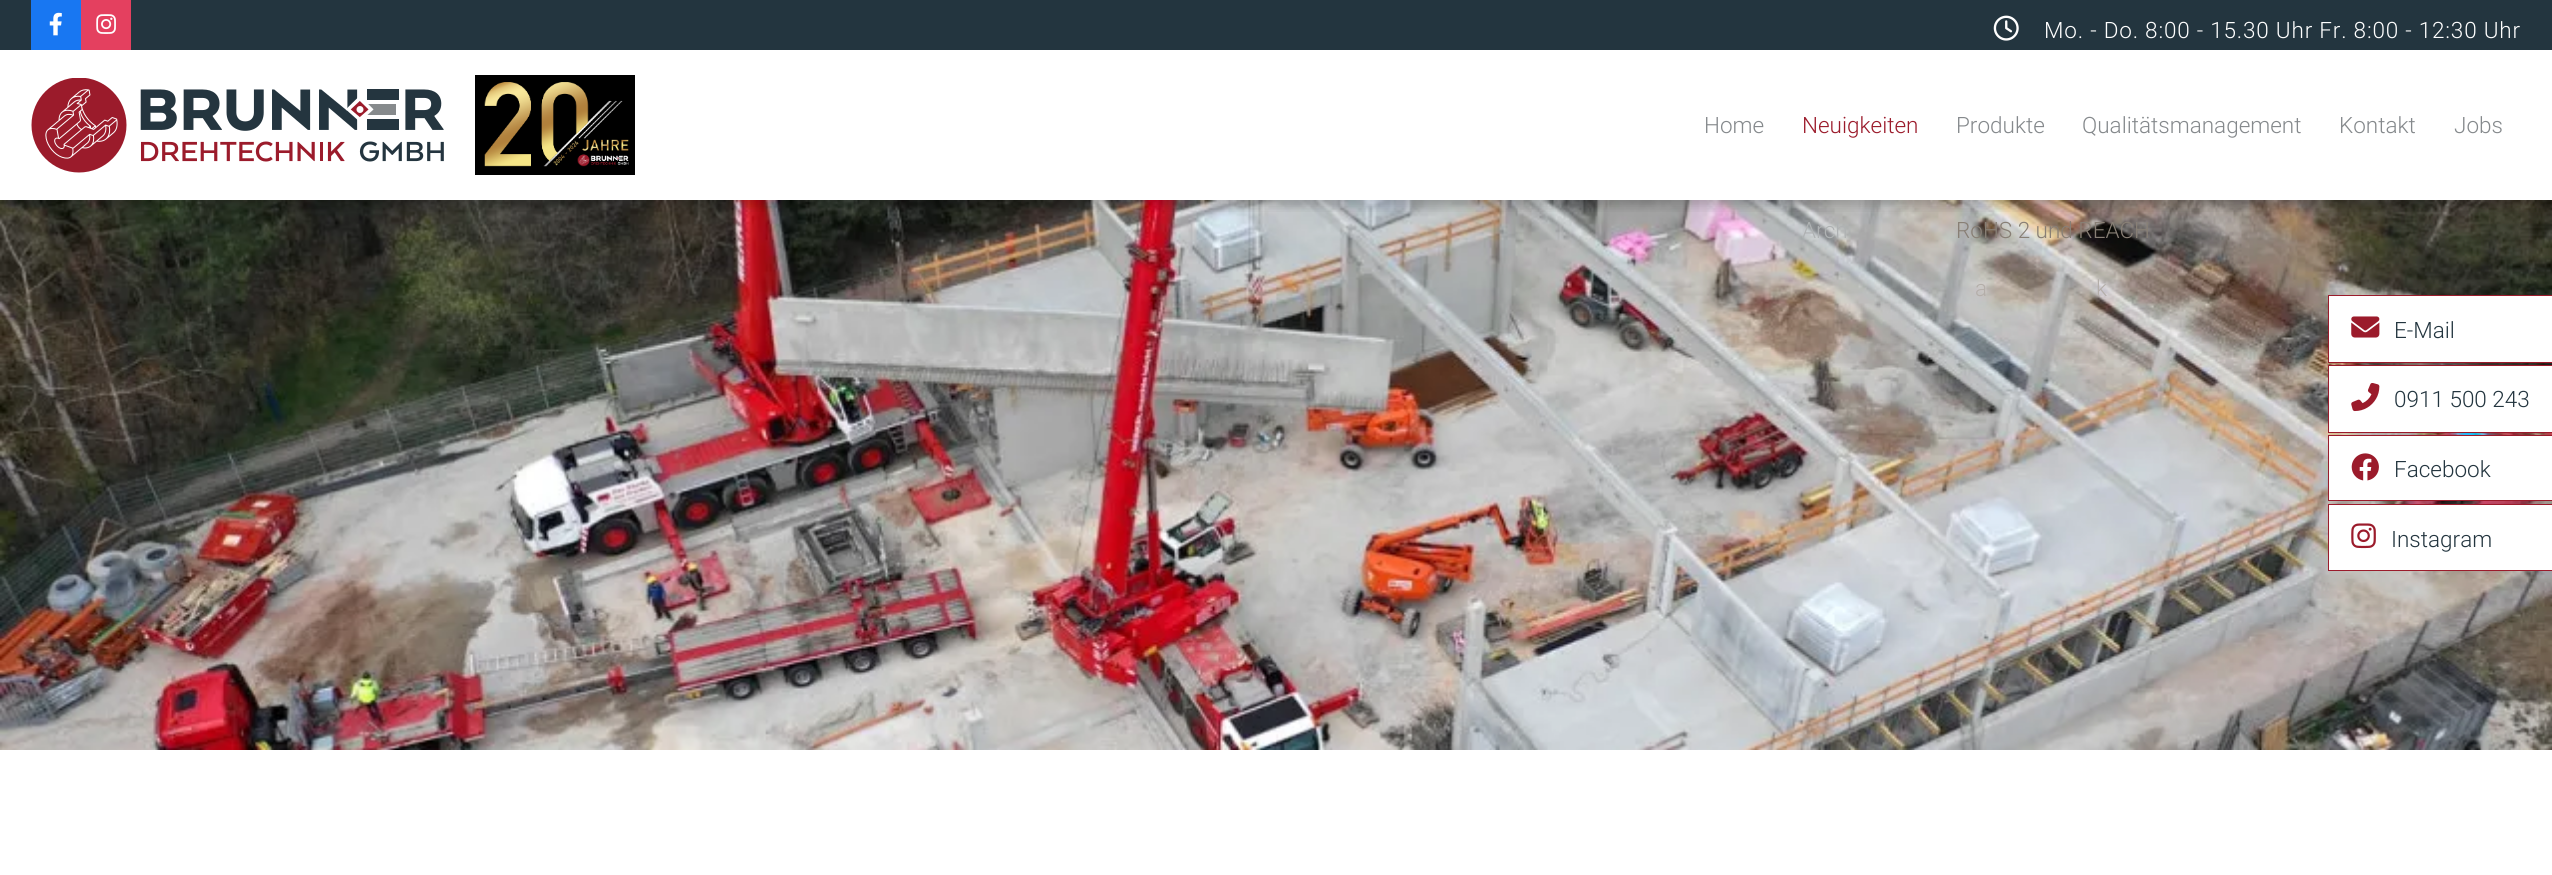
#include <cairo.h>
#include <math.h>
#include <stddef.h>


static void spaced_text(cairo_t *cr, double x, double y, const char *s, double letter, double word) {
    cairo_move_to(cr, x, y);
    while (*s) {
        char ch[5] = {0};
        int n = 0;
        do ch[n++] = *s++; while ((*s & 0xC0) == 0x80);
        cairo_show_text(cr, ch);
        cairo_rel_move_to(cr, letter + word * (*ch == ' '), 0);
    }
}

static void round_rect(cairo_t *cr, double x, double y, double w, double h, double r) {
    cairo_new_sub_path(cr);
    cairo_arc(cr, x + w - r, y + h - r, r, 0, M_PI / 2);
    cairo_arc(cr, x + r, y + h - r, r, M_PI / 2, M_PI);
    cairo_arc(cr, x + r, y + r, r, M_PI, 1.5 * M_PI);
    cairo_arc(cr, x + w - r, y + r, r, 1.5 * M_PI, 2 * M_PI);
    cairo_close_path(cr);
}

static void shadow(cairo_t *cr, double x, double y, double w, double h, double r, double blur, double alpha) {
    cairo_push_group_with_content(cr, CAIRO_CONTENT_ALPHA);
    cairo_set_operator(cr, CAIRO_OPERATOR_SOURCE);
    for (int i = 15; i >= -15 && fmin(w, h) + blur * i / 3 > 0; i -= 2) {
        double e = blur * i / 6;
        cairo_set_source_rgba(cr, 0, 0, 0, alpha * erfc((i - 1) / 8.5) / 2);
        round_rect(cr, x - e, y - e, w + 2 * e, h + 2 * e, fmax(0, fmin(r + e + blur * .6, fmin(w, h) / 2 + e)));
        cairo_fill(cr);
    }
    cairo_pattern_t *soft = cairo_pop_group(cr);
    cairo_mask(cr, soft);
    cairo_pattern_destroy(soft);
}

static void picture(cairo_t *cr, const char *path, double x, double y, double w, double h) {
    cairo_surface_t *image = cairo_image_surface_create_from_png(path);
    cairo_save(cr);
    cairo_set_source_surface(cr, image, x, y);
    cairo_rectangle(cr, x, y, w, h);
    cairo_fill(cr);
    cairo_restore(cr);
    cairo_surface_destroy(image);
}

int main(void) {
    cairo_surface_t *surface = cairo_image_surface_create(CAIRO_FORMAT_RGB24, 2552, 875);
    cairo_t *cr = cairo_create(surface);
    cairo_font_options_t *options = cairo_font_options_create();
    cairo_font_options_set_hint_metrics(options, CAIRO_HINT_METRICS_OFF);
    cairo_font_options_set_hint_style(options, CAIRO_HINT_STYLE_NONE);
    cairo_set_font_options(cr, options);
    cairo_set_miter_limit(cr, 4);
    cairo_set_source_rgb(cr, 1, 1, 1);
    cairo_paint(cr);
    picture(cr, "img6.png", 0, 200, 2552, 550);
    cairo_save(cr);
    cairo_rectangle(cr, 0, 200, 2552, 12);
    cairo_clip(cr);
    cairo_set_source_rgb(cr, 0, 0, 0);
    shadow(cr, 0, 56, 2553, 150, 0, 5, 0.2);
    cairo_restore(cr);
    cairo_set_source_rgb(cr, 0.137, 0.208, 0.247);
    cairo_rectangle(cr, 0, 0, 2552, 50);
    cairo_fill(cr);
    cairo_set_source_rgb(cr, 0.094, 0.467, 0.949);
    cairo_rectangle(cr, 31, 0, 50, 50);
    cairo_fill(cr);
    picture(cr, "img1.png", 49, 12, 13, 24);
    cairo_set_source_rgb(cr, 0.894, 0.251, 0.373);
    cairo_rectangle(cr, 81, 0, 50, 50);
    cairo_fill(cr);
    picture(cr, "img2.png", 96, 14, 20, 20);
    picture(cr, "img3.png", 1993, 15, 26, 26);
    cairo_select_font_face(cr, "Roboto Light", CAIRO_FONT_SLANT_NORMAL, CAIRO_FONT_WEIGHT_NORMAL);
    cairo_set_font_size(cr, 22.5);
    cairo_set_source_rgb(cr, 1, 1, 1);
    spaced_text(cr, 2044, 38, "Mo. - Do. 8:00 - 15.30 Uhr Fr. 8:00 - 12:30 Uhr", 0.8, 0);
    picture(cr, "img4.png", 31, 78, 413, 95);
    picture(cr, "img5.png", 475, 75, 160, 100);
    cairo_set_source_rgb(cr, 0.522, 0.537, 0.549);
    cairo_move_to(cr, 1704, 133);
    cairo_show_text(cr, "Home");
    cairo_set_source_rgb(cr, 0.608, 0.106, 0.169);
    cairo_move_to(cr, 1802, 133);
    cairo_show_text(cr, "Neuigkeiten");
    cairo_set_source_rgb(cr, 0.686, 0.698, 0.702);
    cairo_move_to(cr, 1802, 238);
    cairo_show_text(cr, "Arch");
    cairo_set_source_rgb(cr, 0.522, 0.537, 0.549);
    cairo_move_to(cr, 1956, 133);
    cairo_show_text(cr, "Produkte");
    cairo_set_source_rgb(cr, 0.533, 0.498, 0.459);
    cairo_move_to(cr, 1956, 238);
    cairo_show_text(cr, "RoHS 2 und REACH");
    cairo_set_source_rgb(cr, 0.706, 0.682, 0.663);
    cairo_move_to(cr, 1975, 296);
    cairo_show_text(cr, "a");
    cairo_move_to(cr, 2096, 296);
    cairo_show_text(cr, "k");
    cairo_set_source_rgb(cr, 0.522, 0.537, 0.549);
    cairo_move_to(cr, 2082, 133);
    cairo_show_text(cr, "Qualitätsmanagement");
    cairo_move_to(cr, 2339, 133);
    cairo_show_text(cr, "Kontakt");
    cairo_move_to(cr, 2454, 133);
    cairo_show_text(cr, "Jobs");
    cairo_set_source_rgb(cr, 1, 1, 1);
    cairo_rectangle(cr, 2328.5, 295.5, 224, 67);
    cairo_fill_preserve(cr);
    cairo_set_source_rgb(cr, 0.608, 0.106, 0.169);
    cairo_set_line_width(cr, 1);
    cairo_stroke(cr);
    picture(cr, "img7.png", 2351, 316, 29, 22);
    cairo_set_source_rgb(cr, 0.137, 0.208, 0.247);
    cairo_move_to(cr, 2394, 338);
    cairo_show_text(cr, "E-Mail");
    cairo_set_source_rgb(cr, 1, 1, 1);
    cairo_rectangle(cr, 2328.5, 365.5, 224, 67);
    cairo_fill_preserve(cr);
    cairo_set_source_rgb(cr, 0.608, 0.106, 0.169);
    cairo_stroke(cr);
    picture(cr, "img8.png", 2351, 383, 29, 29);
    cairo_set_source_rgb(cr, 0.137, 0.208, 0.247);
    cairo_move_to(cr, 2394, 407);
    cairo_show_text(cr, "0911 500 243");
    cairo_set_source_rgb(cr, 1, 1, 1);
    cairo_rectangle(cr, 2328.5, 435.5, 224, 65);
    cairo_fill_preserve(cr);
    cairo_set_source_rgb(cr, 0.608, 0.106, 0.169);
    cairo_stroke(cr);
    picture(cr, "img9.png", 2351, 453, 28, 28);
    cairo_set_source_rgb(cr, 0.137, 0.208, 0.247);
    cairo_move_to(cr, 2394, 477);
    cairo_show_text(cr, "Facebook");
    cairo_set_source_rgb(cr, 1, 1, 1);
    cairo_rectangle(cr, 2328.5, 504.5, 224, 66);
    cairo_fill_preserve(cr);
    cairo_set_source_rgb(cr, 0.608, 0.106, 0.169);
    cairo_stroke(cr);
    picture(cr, "img10.png", 2351, 523, 25, 26);
    cairo_set_source_rgb(cr, 0.137, 0.208, 0.247);
    cairo_move_to(cr, 2391, 547);
    cairo_show_text(cr, "Instagram");
    cairo_surface_write_to_png(surface, "page.png");
    cairo_font_options_destroy(options);
    cairo_destroy(cr);
    cairo_surface_destroy(surface);
    return 0;
}
